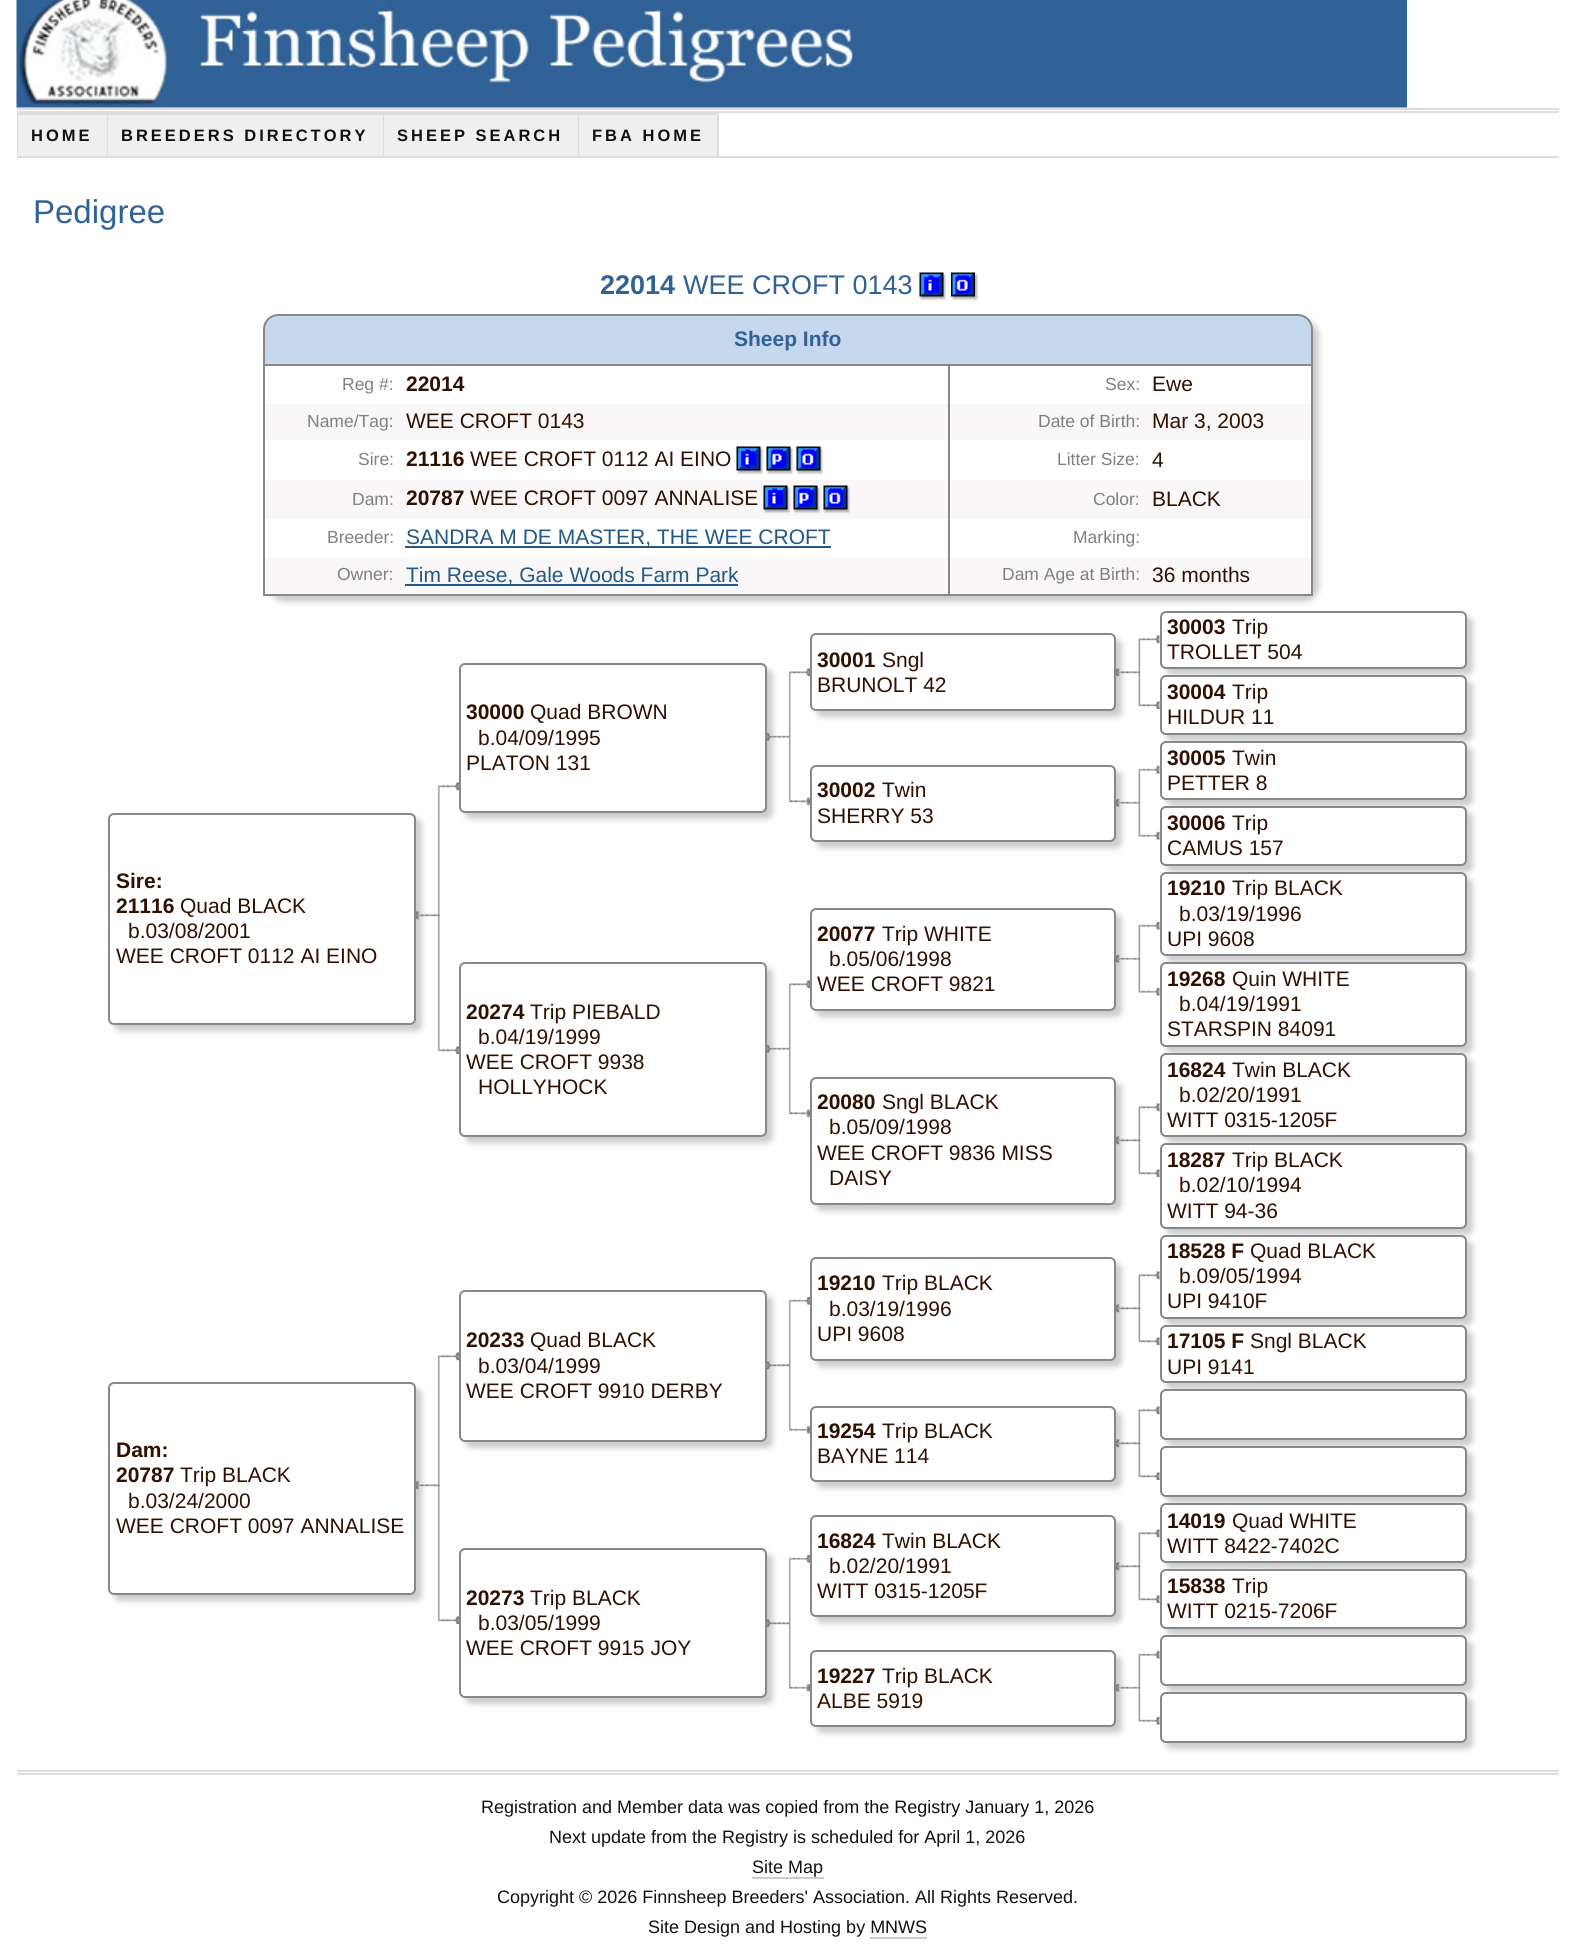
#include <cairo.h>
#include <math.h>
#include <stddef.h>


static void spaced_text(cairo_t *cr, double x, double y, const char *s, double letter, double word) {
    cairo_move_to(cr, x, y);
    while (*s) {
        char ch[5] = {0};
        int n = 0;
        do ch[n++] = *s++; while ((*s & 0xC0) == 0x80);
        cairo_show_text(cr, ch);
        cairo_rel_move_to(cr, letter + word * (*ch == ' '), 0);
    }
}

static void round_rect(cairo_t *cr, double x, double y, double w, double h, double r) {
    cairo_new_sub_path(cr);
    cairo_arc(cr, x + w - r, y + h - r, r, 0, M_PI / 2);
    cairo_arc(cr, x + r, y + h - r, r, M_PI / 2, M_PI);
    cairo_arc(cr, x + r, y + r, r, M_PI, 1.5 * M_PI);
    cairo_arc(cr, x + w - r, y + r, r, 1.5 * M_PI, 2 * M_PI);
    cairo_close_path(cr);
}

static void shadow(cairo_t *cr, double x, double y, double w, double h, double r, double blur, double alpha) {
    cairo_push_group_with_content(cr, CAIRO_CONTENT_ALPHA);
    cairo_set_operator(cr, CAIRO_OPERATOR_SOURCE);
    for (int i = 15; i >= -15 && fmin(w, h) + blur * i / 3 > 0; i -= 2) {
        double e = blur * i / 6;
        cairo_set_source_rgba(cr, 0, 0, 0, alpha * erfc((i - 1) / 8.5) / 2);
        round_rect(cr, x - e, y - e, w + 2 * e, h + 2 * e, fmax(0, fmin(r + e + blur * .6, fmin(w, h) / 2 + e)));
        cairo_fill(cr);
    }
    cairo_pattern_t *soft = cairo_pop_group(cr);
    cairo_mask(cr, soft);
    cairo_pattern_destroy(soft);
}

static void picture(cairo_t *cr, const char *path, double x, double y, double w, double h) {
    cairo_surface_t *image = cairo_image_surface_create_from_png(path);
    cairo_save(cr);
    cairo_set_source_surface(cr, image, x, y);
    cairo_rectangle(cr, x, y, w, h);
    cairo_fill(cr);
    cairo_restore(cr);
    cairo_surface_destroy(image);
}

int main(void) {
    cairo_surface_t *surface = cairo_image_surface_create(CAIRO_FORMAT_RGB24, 1573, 1948);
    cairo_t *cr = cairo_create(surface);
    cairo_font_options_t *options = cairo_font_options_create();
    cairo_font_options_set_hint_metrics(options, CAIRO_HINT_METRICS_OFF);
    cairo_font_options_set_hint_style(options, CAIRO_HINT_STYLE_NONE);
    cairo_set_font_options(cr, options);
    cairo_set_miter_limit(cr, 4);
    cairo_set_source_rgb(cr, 1, 1, 1);
    cairo_paint(cr);
    picture(cr, "img1.png", 16, 0, 1391, 108);
    cairo_set_source_rgb(cr, 0.867, 0.867, 0.867);
    cairo_rectangle(cr, 17, 108, 1542, 2);
    cairo_fill(cr);
    cairo_rectangle(cr, 17, 111, 1542, 2);
    cairo_fill(cr);
    cairo_rectangle(cr, 17, 156, 1542, 2);
    cairo_fill(cr);
    cairo_rectangle(cr, 17, 113, 2, 45);
    cairo_fill(cr);
    cairo_set_source_rgb(cr, 0.937, 0.937, 0.937);
    cairo_rectangle(cr, 18, 115, 89, 41);
    cairo_fill(cr);
    cairo_set_source_rgb(cr, 0.867, 0.867, 0.867);
    cairo_rectangle(cr, 18, 113, 90, 2);
    cairo_fill(cr);
    cairo_rectangle(cr, 107, 113, 2, 45);
    cairo_fill(cr);
    cairo_select_font_face(cr, "Liberation Sans", CAIRO_FONT_SLANT_NORMAL, CAIRO_FONT_WEIGHT_BOLD);
    cairo_set_font_size(cr, 16.5);
    cairo_set_source_rgb(cr, 0.067, 0.067, 0.067);
    spaced_text(cr, 31, 141, "HOME", 3, 0);
    cairo_set_source_rgb(cr, 0.937, 0.937, 0.937);
    cairo_rectangle(cr, 108, 115, 275, 41);
    cairo_fill(cr);
    cairo_set_source_rgb(cr, 0.867, 0.867, 0.867);
    cairo_rectangle(cr, 108, 113, 276, 2);
    cairo_fill(cr);
    cairo_rectangle(cr, 383, 113, 2, 45);
    cairo_fill(cr);
    cairo_set_source_rgb(cr, 0.067, 0.067, 0.067);
    spaced_text(cr, 121, 141, "BREEDERS DIRECTORY", 3, 0);
    cairo_set_source_rgb(cr, 0.937, 0.937, 0.937);
    cairo_rectangle(cr, 384, 115, 194, 41);
    cairo_fill(cr);
    cairo_set_source_rgb(cr, 0.867, 0.867, 0.867);
    cairo_rectangle(cr, 384, 113, 195, 2);
    cairo_fill(cr);
    cairo_rectangle(cr, 578, 113, 2, 45);
    cairo_fill(cr);
    cairo_set_source_rgb(cr, 0.067, 0.067, 0.067);
    spaced_text(cr, 397, 141, "SHEEP SEARCH", 3, 0);
    cairo_set_source_rgb(cr, 0.937, 0.937, 0.937);
    cairo_rectangle(cr, 579, 115, 138, 41);
    cairo_fill(cr);
    cairo_set_source_rgb(cr, 0.867, 0.867, 0.867);
    cairo_rectangle(cr, 579, 113, 140, 2);
    cairo_fill(cr);
    cairo_rectangle(cr, 717, 113, 2, 45);
    cairo_fill(cr);
    cairo_set_source_rgb(cr, 0.067, 0.067, 0.067);
    spaced_text(cr, 592, 141, "FBA HOME", 3, 0);
    cairo_select_font_face(cr, "Liberation Sans", CAIRO_FONT_SLANT_NORMAL, CAIRO_FONT_WEIGHT_NORMAL);
    cairo_set_font_size(cr, 33);
    cairo_set_source_rgb(cr, 0.188, 0.384, 0.596);
    cairo_move_to(cr, 33, 223);
    cairo_show_text(cr, "Pedigree");
    cairo_set_source_rgb(cr, 0, 0, 0);
    shadow(cr, 921, 275, 24, 24, 0, 1, 0.3);
    shadow(cr, 953, 275, 24, 24, 0, 1, 0.3);
    cairo_select_font_face(cr, "Liberation Sans", CAIRO_FONT_SLANT_NORMAL, CAIRO_FONT_WEIGHT_BOLD);
    cairo_set_font_size(cr, 27);
    cairo_set_source_rgb(cr, 0.188, 0.384, 0.596);
    cairo_move_to(cr, 600, 294);
    cairo_show_text(cr, "22014");
    cairo_select_font_face(cr, "Liberation Sans", CAIRO_FONT_SLANT_NORMAL, CAIRO_FONT_WEIGHT_NORMAL);
    cairo_move_to(cr, 683, 294);
    cairo_show_text(cr, "WEE CROFT 0143");
    picture(cr, "img2.png", 919, 272, 25, 25);
    picture(cr, "img3.png", 951, 272, 24, 25);
    cairo_save(cr);
    cairo_set_fill_rule(cr, CAIRO_FILL_RULE_EVEN_ODD);
    cairo_new_path(cr);
    cairo_move_to(cr, 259, 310);
    cairo_line_to(cr, 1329, 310);
    cairo_line_to(cr, 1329, 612);
    cairo_line_to(cr, 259, 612);
    cairo_close_path(cr);
    cairo_move_to(cr, 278, 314);
    cairo_line_to(cr, 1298, 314);
    cairo_curve_to(cr, 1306.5, 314, 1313, 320.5, 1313, 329);
    cairo_line_to(cr, 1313, 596);
    cairo_line_to(cr, 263, 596);
    cairo_line_to(cr, 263, 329);
    cairo_curve_to(cr, 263, 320.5, 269.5, 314, 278, 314);
    cairo_close_path(cr);
    cairo_clip(cr);
    cairo_set_source_rgb(cr, 0, 0, 0);
    shadow(cr, 269, 320, 1050, 282, 15, 3, 0.2);
    cairo_restore(cr);
    cairo_set_source_rgb(cr, 0.773, 0.847, 0.929);
    cairo_new_path(cr);
    cairo_move_to(cr, 278, 315);
    cairo_line_to(cr, 1298, 315);
    cairo_curve_to(cr, 1305.5, 315, 1312, 321.5, 1312, 329);
    cairo_line_to(cr, 1312, 365);
    cairo_line_to(cr, 264, 365);
    cairo_line_to(cr, 264, 329);
    cairo_curve_to(cr, 264, 321.5, 270.5, 315, 278, 315);
    cairo_close_path(cr);
    cairo_fill_preserve(cr);
    cairo_set_source_rgb(cr, 0.533, 0.533, 0.533);
    cairo_stroke(cr);
    cairo_select_font_face(cr, "Liberation Sans", CAIRO_FONT_SLANT_NORMAL, CAIRO_FONT_WEIGHT_BOLD);
    cairo_set_font_size(cr, 21);
    cairo_set_source_rgb(cr, 0.188, 0.384, 0.596);
    cairo_move_to(cr, 734, 346);
    cairo_show_text(cr, "Sheep Info");
    cairo_set_source_rgb(cr, 0.533, 0.533, 0.533);
    cairo_rectangle(cr, 263, 366, 2, 228);
    cairo_fill(cr);
    cairo_select_font_face(cr, "Liberation Sans", CAIRO_FONT_SLANT_NORMAL, CAIRO_FONT_WEIGHT_NORMAL);
    cairo_set_font_size(cr, 17.5);
    cairo_set_source_rgb(cr, 0.502, 0.502, 0.502);
    cairo_move_to(cr, 342, 390);
    cairo_show_text(cr, "Reg #:");
    cairo_set_source_rgb(cr, 0.533, 0.533, 0.533);
    cairo_rectangle(cr, 948, 366, 2, 228);
    cairo_fill(cr);
    cairo_select_font_face(cr, "Liberation Sans", CAIRO_FONT_SLANT_NORMAL, CAIRO_FONT_WEIGHT_BOLD);
    cairo_set_font_size(cr, 21);
    cairo_set_source_rgb(cr, 0.188, 0.063, 0);
    cairo_move_to(cr, 406, 391);
    cairo_show_text(cr, "22014");
    cairo_select_font_face(cr, "Liberation Sans", CAIRO_FONT_SLANT_NORMAL, CAIRO_FONT_WEIGHT_NORMAL);
    cairo_set_font_size(cr, 17.5);
    cairo_set_source_rgb(cr, 0.502, 0.502, 0.502);
    cairo_move_to(cr, 1105, 390);
    cairo_show_text(cr, "Sex:");
    cairo_set_source_rgb(cr, 0.533, 0.533, 0.533);
    cairo_rectangle(cr, 1311, 366, 2, 228);
    cairo_fill(cr);
    cairo_set_font_size(cr, 21);
    cairo_set_source_rgb(cr, 0.188, 0.063, 0);
    cairo_move_to(cr, 1152, 391);
    cairo_show_text(cr, "Ewe");
    cairo_set_source_rgb(cr, 0.973, 0.965, 0.969);
    cairo_rectangle(cr, 265, 404, 683, 36);
    cairo_fill(cr);
    cairo_set_font_size(cr, 17.5);
    cairo_set_source_rgb(cr, 0.502, 0.502, 0.502);
    cairo_move_to(cr, 307, 427);
    cairo_show_text(cr, "Name/Tag:");
    cairo_set_font_size(cr, 21);
    cairo_set_source_rgb(cr, 0.188, 0.063, 0);
    cairo_move_to(cr, 406, 428);
    cairo_show_text(cr, "WEE CROFT 0143");
    cairo_set_source_rgb(cr, 0.973, 0.965, 0.969);
    cairo_rectangle(cr, 950, 404, 361, 36);
    cairo_fill(cr);
    cairo_set_font_size(cr, 17.5);
    cairo_set_source_rgb(cr, 0.502, 0.502, 0.502);
    cairo_move_to(cr, 1038, 427);
    cairo_show_text(cr, "Date of Birth:");
    cairo_set_font_size(cr, 21);
    cairo_set_source_rgb(cr, 0.188, 0.063, 0);
    cairo_move_to(cr, 1152, 428);
    cairo_show_text(cr, "Mar 3, 2003");
    cairo_set_font_size(cr, 17.5);
    cairo_set_source_rgb(cr, 0.502, 0.502, 0.502);
    cairo_move_to(cr, 358, 465);
    cairo_show_text(cr, "Sire:");
    cairo_set_source_rgb(cr, 0, 0, 0);
    shadow(cr, 738, 449, 24, 24, 0, 1, 0.3);
    shadow(cr, 768, 449, 24, 24, 0, 1, 0.3);
    shadow(cr, 798, 449, 24, 24, 0, 1, 0.3);
    cairo_select_font_face(cr, "Liberation Sans", CAIRO_FONT_SLANT_NORMAL, CAIRO_FONT_WEIGHT_BOLD);
    cairo_set_font_size(cr, 21);
    cairo_set_source_rgb(cr, 0.188, 0.063, 0);
    cairo_move_to(cr, 406, 466);
    cairo_show_text(cr, "21116");
    cairo_select_font_face(cr, "Liberation Sans", CAIRO_FONT_SLANT_NORMAL, CAIRO_FONT_WEIGHT_NORMAL);
    cairo_move_to(cr, 470, 466);
    cairo_show_text(cr, "WEE CROFT 0112 AI EINO");
    picture(cr, "img4.png", 736, 446, 25, 25);
    picture(cr, "img5.png", 766, 446, 25, 25);
    picture(cr, "img6.png", 796, 446, 25, 25);
    cairo_set_font_size(cr, 17.5);
    cairo_set_source_rgb(cr, 0.502, 0.502, 0.502);
    cairo_move_to(cr, 1057, 465);
    cairo_show_text(cr, "Litter Size:");
    cairo_set_font_size(cr, 21);
    cairo_set_source_rgb(cr, 0.188, 0.063, 0);
    cairo_move_to(cr, 1152, 467);
    cairo_show_text(cr, "4");
    cairo_set_source_rgb(cr, 0.973, 0.965, 0.969);
    cairo_rectangle(cr, 265, 480, 683, 39);
    cairo_fill(cr);
    cairo_set_font_size(cr, 17.5);
    cairo_set_source_rgb(cr, 0.502, 0.502, 0.502);
    cairo_move_to(cr, 352, 505);
    cairo_show_text(cr, "Dam:");
    cairo_set_source_rgb(cr, 0, 0, 0);
    shadow(cr, 765, 488, 24, 24, 0, 1, 0.3);
    shadow(cr, 795, 488, 24, 24, 0, 1, 0.3);
    shadow(cr, 825, 488, 24, 24, 0, 1, 0.3);
    cairo_select_font_face(cr, "Liberation Sans", CAIRO_FONT_SLANT_NORMAL, CAIRO_FONT_WEIGHT_BOLD);
    cairo_set_font_size(cr, 21);
    cairo_set_source_rgb(cr, 0.188, 0.063, 0);
    cairo_move_to(cr, 406, 505);
    cairo_show_text(cr, "20787");
    cairo_select_font_face(cr, "Liberation Sans", CAIRO_FONT_SLANT_NORMAL, CAIRO_FONT_WEIGHT_NORMAL);
    cairo_move_to(cr, 470, 505);
    cairo_show_text(cr, "WEE CROFT 0097 ANNALISE");
    picture(cr, "img7.png", 763, 485, 25, 25);
    picture(cr, "img8.png", 793, 485, 25, 25);
    picture(cr, "img9.png", 823, 485, 25, 25);
    cairo_set_source_rgb(cr, 0.973, 0.965, 0.969);
    cairo_rectangle(cr, 950, 480, 361, 39);
    cairo_fill(cr);
    cairo_set_font_size(cr, 17.5);
    cairo_set_source_rgb(cr, 0.502, 0.502, 0.502);
    cairo_move_to(cr, 1093, 505);
    cairo_show_text(cr, "Color:");
    cairo_set_font_size(cr, 21);
    cairo_set_source_rgb(cr, 0.188, 0.063, 0);
    cairo_move_to(cr, 1152, 506);
    cairo_show_text(cr, "BLACK");
    cairo_set_font_size(cr, 17.5);
    cairo_set_source_rgb(cr, 0.502, 0.502, 0.502);
    cairo_move_to(cr, 327, 543);
    cairo_show_text(cr, "Breeder:");
    cairo_set_source_rgb(cr, 0.133, 0.349, 0.529);
    cairo_rectangle(cr, 405, 546, 426, 2);
    cairo_fill(cr);
    cairo_set_font_size(cr, 21);
    cairo_move_to(cr, 406, 544);
    cairo_show_text(cr, "SANDRA M DE MASTER, THE WEE CROFT");
    cairo_set_font_size(cr, 17.5);
    cairo_set_source_rgb(cr, 0.502, 0.502, 0.502);
    cairo_move_to(cr, 1073, 543);
    cairo_show_text(cr, "Marking:");
    cairo_set_source_rgb(cr, 0.973, 0.965, 0.969);
    cairo_rectangle(cr, 265, 557, 683, 37);
    cairo_fill(cr);
    cairo_set_source_rgb(cr, 0.502, 0.502, 0.502);
    cairo_move_to(cr, 337, 580);
    cairo_show_text(cr, "Owner:");
    cairo_set_source_rgb(cr, 0.133, 0.349, 0.529);
    cairo_rectangle(cr, 405, 584, 333, 2);
    cairo_fill(cr);
    cairo_set_font_size(cr, 21);
    cairo_move_to(cr, 406, 582);
    cairo_show_text(cr, "Tim Reese, Gale Woods Farm Park");
    cairo_set_source_rgb(cr, 0.973, 0.965, 0.969);
    cairo_rectangle(cr, 950, 557, 361, 37);
    cairo_fill(cr);
    cairo_set_font_size(cr, 17.5);
    cairo_set_source_rgb(cr, 0.502, 0.502, 0.502);
    cairo_move_to(cr, 1002, 580);
    cairo_show_text(cr, "Dam Age at Birth:");
    cairo_set_font_size(cr, 21);
    cairo_set_source_rgb(cr, 0.188, 0.063, 0);
    cairo_move_to(cr, 1152, 582);
    cairo_show_text(cr, "36 months");
    cairo_set_source_rgb(cr, 0.533, 0.533, 0.533);
    cairo_rectangle(cr, 263, 594, 1050, 2);
    cairo_fill(cr);
    cairo_set_source_rgb(cr, 0, 0, 0);
    shadow(cr, 465, 669, 308, 150, 6, 3, 0.2);
    cairo_set_source_rgb(cr, 1, 1, 1);
    round_rect(cr, 460, 664, 306, 148, 5);
    cairo_fill_preserve(cr);
    cairo_set_source_rgb(cr, 0.533, 0.533, 0.533);
    cairo_stroke(cr);
    cairo_select_font_face(cr, "Liberation Sans", CAIRO_FONT_SLANT_NORMAL, CAIRO_FONT_WEIGHT_BOLD);
    cairo_set_source_rgb(cr, 0.188, 0.063, 0);
    cairo_move_to(cr, 466, 719);
    cairo_show_text(cr, "30000");
    cairo_select_font_face(cr, "Liberation Sans", CAIRO_FONT_SLANT_NORMAL, CAIRO_FONT_WEIGHT_NORMAL);
    cairo_move_to(cr, 530, 719);
    cairo_show_text(cr, "Quad BROWN");
    cairo_move_to(cr, 478, 745);
    cairo_show_text(cr, "b.04/09/1995");
    cairo_move_to(cr, 466, 770);
    cairo_show_text(cr, "PLATON 131");
    cairo_set_source_rgb(cr, 0, 0, 0);
    shadow(cr, 816, 639, 306, 78, 6, 3, 0.2);
    shadow(cr, 816, 771, 306, 77, 6, 3, 0.2);
    picture(cr, "img10.png", 766, 668, 44, 137);
    cairo_set_source_rgb(cr, 1, 1, 1);
    round_rect(cr, 811, 634, 304, 76, 5);
    cairo_fill_preserve(cr);
    cairo_set_source_rgb(cr, 0.533, 0.533, 0.533);
    cairo_stroke(cr);
    cairo_select_font_face(cr, "Liberation Sans", CAIRO_FONT_SLANT_NORMAL, CAIRO_FONT_WEIGHT_BOLD);
    cairo_set_source_rgb(cr, 0.188, 0.063, 0);
    cairo_move_to(cr, 817, 667);
    cairo_show_text(cr, "30001");
    cairo_select_font_face(cr, "Liberation Sans", CAIRO_FONT_SLANT_NORMAL, CAIRO_FONT_WEIGHT_NORMAL);
    cairo_move_to(cr, 882, 667);
    cairo_show_text(cr, "Sngl");
    cairo_move_to(cr, 817, 692);
    cairo_show_text(cr, "BRUNOLT 42");
    cairo_set_source_rgb(cr, 0, 0, 0);
    shadow(cr, 1166, 617, 307, 58, 6, 3, 0.2);
    shadow(cr, 1166, 681, 307, 60, 6, 3, 0.2);
    picture(cr, "img11.png", 1116, 635, 44, 74);
    cairo_set_source_rgb(cr, 1, 1, 1);
    round_rect(cr, 1161, 612, 305, 56, 5);
    cairo_fill_preserve(cr);
    cairo_set_source_rgb(cr, 0.533, 0.533, 0.533);
    cairo_stroke(cr);
    cairo_select_font_face(cr, "Liberation Sans", CAIRO_FONT_SLANT_NORMAL, CAIRO_FONT_WEIGHT_BOLD);
    cairo_set_source_rgb(cr, 0.188, 0.063, 0);
    cairo_move_to(cr, 1167, 634);
    cairo_show_text(cr, "30003");
    cairo_select_font_face(cr, "Liberation Sans", CAIRO_FONT_SLANT_NORMAL, CAIRO_FONT_WEIGHT_NORMAL);
    cairo_move_to(cr, 1232, 634);
    cairo_show_text(cr, "Trip");
    cairo_move_to(cr, 1167, 659);
    cairo_show_text(cr, "TROLLET 504");
    cairo_set_source_rgb(cr, 0, 0, 0);
    shadow(cr, 114, 819, 308, 212, 6, 3, 0.2);
    cairo_set_source_rgb(cr, 1, 1, 1);
    round_rect(cr, 109, 814, 306, 210, 5);
    cairo_fill_preserve(cr);
    cairo_set_source_rgb(cr, 0.533, 0.533, 0.533);
    cairo_stroke(cr);
    cairo_select_font_face(cr, "Liberation Sans", CAIRO_FONT_SLANT_NORMAL, CAIRO_FONT_WEIGHT_BOLD);
    cairo_set_source_rgb(cr, 0.188, 0.063, 0);
    cairo_move_to(cr, 116, 888);
    cairo_show_text(cr, "Sire:");
    cairo_move_to(cr, 116, 913);
    cairo_show_text(cr, "21116");
    cairo_select_font_face(cr, "Liberation Sans", CAIRO_FONT_SLANT_NORMAL, CAIRO_FONT_WEIGHT_NORMAL);
    cairo_move_to(cr, 180, 913);
    cairo_show_text(cr, "Quad BLACK");
    cairo_move_to(cr, 128, 938);
    cairo_show_text(cr, "b.03/08/2001");
    cairo_move_to(cr, 116, 963);
    cairo_show_text(cr, "WEE CROFT 0112 AI EINO");
    cairo_set_source_rgb(cr, 0, 0, 0);
    shadow(cr, 465, 968, 308, 175, 6, 3, 0.2);
    picture(cr, "img12.png", 415, 782, 44, 272);
    cairo_set_source_rgb(cr, 1, 1, 1);
    round_rect(cr, 1161, 676, 305, 58, 5);
    cairo_fill_preserve(cr);
    cairo_set_source_rgb(cr, 0.533, 0.533, 0.533);
    cairo_stroke(cr);
    cairo_select_font_face(cr, "Liberation Sans", CAIRO_FONT_SLANT_NORMAL, CAIRO_FONT_WEIGHT_BOLD);
    cairo_set_source_rgb(cr, 0.188, 0.063, 0);
    cairo_move_to(cr, 1167, 699);
    cairo_show_text(cr, "30004");
    cairo_select_font_face(cr, "Liberation Sans", CAIRO_FONT_SLANT_NORMAL, CAIRO_FONT_WEIGHT_NORMAL);
    cairo_move_to(cr, 1232, 699);
    cairo_show_text(cr, "Trip");
    cairo_move_to(cr, 1167, 724);
    cairo_show_text(cr, "HILDUR 11");
    cairo_set_source_rgb(cr, 1, 1, 1);
    round_rect(cr, 811, 766, 304, 75, 5);
    cairo_fill_preserve(cr);
    cairo_set_source_rgb(cr, 0.533, 0.533, 0.533);
    cairo_stroke(cr);
    cairo_select_font_face(cr, "Liberation Sans", CAIRO_FONT_SLANT_NORMAL, CAIRO_FONT_WEIGHT_BOLD);
    cairo_set_source_rgb(cr, 0.188, 0.063, 0);
    cairo_move_to(cr, 817, 797);
    cairo_show_text(cr, "30002");
    cairo_select_font_face(cr, "Liberation Sans", CAIRO_FONT_SLANT_NORMAL, CAIRO_FONT_WEIGHT_NORMAL);
    cairo_move_to(cr, 882, 797);
    cairo_show_text(cr, "Twin");
    cairo_move_to(cr, 817, 823);
    cairo_show_text(cr, "SHERRY 53");
    cairo_set_source_rgb(cr, 0, 0, 0);
    shadow(cr, 1166, 747, 307, 59, 6, 3, 0.2);
    shadow(cr, 1166, 812, 307, 60, 6, 3, 0.2);
    picture(cr, "img13.png", 1116, 765, 44, 75);
    cairo_set_source_rgb(cr, 1, 1, 1);
    round_rect(cr, 1161, 742, 305, 57, 5);
    cairo_fill_preserve(cr);
    cairo_set_source_rgb(cr, 0.533, 0.533, 0.533);
    cairo_stroke(cr);
    cairo_select_font_face(cr, "Liberation Sans", CAIRO_FONT_SLANT_NORMAL, CAIRO_FONT_WEIGHT_BOLD);
    cairo_set_source_rgb(cr, 0.188, 0.063, 0);
    cairo_move_to(cr, 1167, 765);
    cairo_show_text(cr, "30005");
    cairo_select_font_face(cr, "Liberation Sans", CAIRO_FONT_SLANT_NORMAL, CAIRO_FONT_WEIGHT_NORMAL);
    cairo_move_to(cr, 1232, 765);
    cairo_show_text(cr, "Twin");
    cairo_move_to(cr, 1167, 790);
    cairo_show_text(cr, "PETTER 8");
    cairo_set_source_rgb(cr, 1, 1, 1);
    round_rect(cr, 1161, 807, 305, 58, 5);
    cairo_fill_preserve(cr);
    cairo_set_source_rgb(cr, 0.533, 0.533, 0.533);
    cairo_stroke(cr);
    cairo_select_font_face(cr, "Liberation Sans", CAIRO_FONT_SLANT_NORMAL, CAIRO_FONT_WEIGHT_BOLD);
    cairo_set_source_rgb(cr, 0.188, 0.063, 0);
    cairo_move_to(cr, 1167, 830);
    cairo_show_text(cr, "30006");
    cairo_select_font_face(cr, "Liberation Sans", CAIRO_FONT_SLANT_NORMAL, CAIRO_FONT_WEIGHT_NORMAL);
    cairo_move_to(cr, 1232, 830);
    cairo_show_text(cr, "Trip");
    cairo_move_to(cr, 1167, 855);
    cairo_show_text(cr, "CAMUS 157");
    cairo_set_source_rgb(cr, 0, 0, 0);
    shadow(cr, 1166, 878, 307, 84, 6, 3, 0.2);
    cairo_set_source_rgb(cr, 1, 1, 1);
    round_rect(cr, 1161, 873, 305, 82, 5);
    cairo_fill_preserve(cr);
    cairo_set_source_rgb(cr, 0.533, 0.533, 0.533);
    cairo_stroke(cr);
    cairo_select_font_face(cr, "Liberation Sans", CAIRO_FONT_SLANT_NORMAL, CAIRO_FONT_WEIGHT_BOLD);
    cairo_set_source_rgb(cr, 0.188, 0.063, 0);
    cairo_move_to(cr, 1167, 895);
    cairo_show_text(cr, "19210");
    cairo_select_font_face(cr, "Liberation Sans", CAIRO_FONT_SLANT_NORMAL, CAIRO_FONT_WEIGHT_NORMAL);
    cairo_move_to(cr, 1232, 895);
    cairo_show_text(cr, "Trip BLACK");
    cairo_move_to(cr, 1179, 921);
    cairo_show_text(cr, "b.03/19/1996");
    cairo_move_to(cr, 1167, 946);
    cairo_show_text(cr, "UPI 9608");
    cairo_set_source_rgb(cr, 0, 0, 0);
    shadow(cr, 816, 914, 306, 103, 6, 3, 0.2);
    cairo_set_source_rgb(cr, 1, 1, 1);
    round_rect(cr, 811, 909, 304, 101, 5);
    cairo_fill_preserve(cr);
    cairo_set_source_rgb(cr, 0.533, 0.533, 0.533);
    cairo_stroke(cr);
    cairo_select_font_face(cr, "Liberation Sans", CAIRO_FONT_SLANT_NORMAL, CAIRO_FONT_WEIGHT_BOLD);
    cairo_set_source_rgb(cr, 0.188, 0.063, 0);
    cairo_move_to(cr, 817, 941);
    cairo_show_text(cr, "20077");
    cairo_select_font_face(cr, "Liberation Sans", CAIRO_FONT_SLANT_NORMAL, CAIRO_FONT_WEIGHT_NORMAL);
    cairo_move_to(cr, 882, 941);
    cairo_show_text(cr, "Trip WHITE");
    cairo_move_to(cr, 829, 966);
    cairo_show_text(cr, "b.05/06/1998");
    cairo_move_to(cr, 817, 991);
    cairo_show_text(cr, "WEE CROFT 9821");
    cairo_set_source_rgb(cr, 0, 0, 0);
    shadow(cr, 1166, 968, 307, 85, 6, 3, 0.2);
    picture(cr, "img14.png", 1116, 921, 44, 75);
    cairo_set_source_rgb(cr, 1, 1, 1);
    round_rect(cr, 460, 963, 306, 173, 5);
    cairo_fill_preserve(cr);
    cairo_set_source_rgb(cr, 0.533, 0.533, 0.533);
    cairo_stroke(cr);
    cairo_select_font_face(cr, "Liberation Sans", CAIRO_FONT_SLANT_NORMAL, CAIRO_FONT_WEIGHT_BOLD);
    cairo_set_source_rgb(cr, 0.188, 0.063, 0);
    cairo_move_to(cr, 466, 1019);
    cairo_show_text(cr, "20274");
    cairo_select_font_face(cr, "Liberation Sans", CAIRO_FONT_SLANT_NORMAL, CAIRO_FONT_WEIGHT_NORMAL);
    cairo_move_to(cr, 530, 1019);
    cairo_show_text(cr, "Trip PIEBALD");
    cairo_move_to(cr, 478, 1044);
    cairo_show_text(cr, "b.04/19/1999");
    cairo_move_to(cr, 466, 1069);
    cairo_show_text(cr, "WEE CROFT 9938");
    cairo_move_to(cr, 478, 1094);
    cairo_show_text(cr, "HOLLYHOCK");
    cairo_set_source_rgb(cr, 0, 0, 0);
    shadow(cr, 816, 1083, 306, 128, 6, 3, 0.2);
    picture(cr, "img15.png", 766, 980, 44, 137);
    cairo_set_source_rgb(cr, 1, 1, 1);
    round_rect(cr, 1161, 963, 305, 83, 5);
    cairo_fill_preserve(cr);
    cairo_set_source_rgb(cr, 0.533, 0.533, 0.533);
    cairo_stroke(cr);
    cairo_select_font_face(cr, "Liberation Sans", CAIRO_FONT_SLANT_NORMAL, CAIRO_FONT_WEIGHT_BOLD);
    cairo_set_source_rgb(cr, 0.188, 0.063, 0);
    cairo_move_to(cr, 1167, 986);
    cairo_show_text(cr, "19268");
    cairo_select_font_face(cr, "Liberation Sans", CAIRO_FONT_SLANT_NORMAL, CAIRO_FONT_WEIGHT_NORMAL);
    cairo_move_to(cr, 1232, 986);
    cairo_show_text(cr, "Quin WHITE");
    cairo_move_to(cr, 1179, 1011);
    cairo_show_text(cr, "b.04/19/1991");
    cairo_move_to(cr, 1167, 1036);
    cairo_show_text(cr, "STARSPIN 84091");
    cairo_set_source_rgb(cr, 1, 1, 1);
    round_rect(cr, 811, 1078, 304, 126, 5);
    cairo_fill_preserve(cr);
    cairo_set_source_rgb(cr, 0.533, 0.533, 0.533);
    cairo_stroke(cr);
    cairo_select_font_face(cr, "Liberation Sans", CAIRO_FONT_SLANT_NORMAL, CAIRO_FONT_WEIGHT_BOLD);
    cairo_set_source_rgb(cr, 0.188, 0.063, 0);
    cairo_move_to(cr, 817, 1109);
    cairo_show_text(cr, "20080");
    cairo_select_font_face(cr, "Liberation Sans", CAIRO_FONT_SLANT_NORMAL, CAIRO_FONT_WEIGHT_NORMAL);
    cairo_move_to(cr, 882, 1109);
    cairo_show_text(cr, "Sngl BLACK");
    cairo_move_to(cr, 829, 1134);
    cairo_show_text(cr, "b.05/09/1998");
    cairo_move_to(cr, 817, 1160);
    cairo_show_text(cr, "WEE CROFT 9836 MISS");
    cairo_move_to(cr, 829, 1185);
    cairo_show_text(cr, "DAISY");
    cairo_set_source_rgb(cr, 0, 0, 0);
    shadow(cr, 1166, 1059, 307, 84, 6, 3, 0.2);
    shadow(cr, 1166, 1149, 307, 86, 6, 3, 0.2);
    picture(cr, "img16.png", 1116, 1103, 44, 74);
    cairo_set_source_rgb(cr, 1, 1, 1);
    round_rect(cr, 1161, 1054, 305, 82, 5);
    cairo_fill_preserve(cr);
    cairo_set_source_rgb(cr, 0.533, 0.533, 0.533);
    cairo_stroke(cr);
    cairo_select_font_face(cr, "Liberation Sans", CAIRO_FONT_SLANT_NORMAL, CAIRO_FONT_WEIGHT_BOLD);
    cairo_set_source_rgb(cr, 0.188, 0.063, 0);
    cairo_move_to(cr, 1167, 1077);
    cairo_show_text(cr, "16824");
    cairo_select_font_face(cr, "Liberation Sans", CAIRO_FONT_SLANT_NORMAL, CAIRO_FONT_WEIGHT_NORMAL);
    cairo_move_to(cr, 1232, 1077);
    cairo_show_text(cr, "Twin BLACK");
    cairo_move_to(cr, 1179, 1102);
    cairo_show_text(cr, "b.02/20/1991");
    cairo_move_to(cr, 1167, 1127);
    cairo_show_text(cr, "WITT 0315-1205F");
    cairo_set_source_rgb(cr, 1, 1, 1);
    round_rect(cr, 1161, 1144, 305, 84, 5);
    cairo_fill_preserve(cr);
    cairo_set_source_rgb(cr, 0.533, 0.533, 0.533);
    cairo_stroke(cr);
    cairo_select_font_face(cr, "Liberation Sans", CAIRO_FONT_SLANT_NORMAL, CAIRO_FONT_WEIGHT_BOLD);
    cairo_set_source_rgb(cr, 0.188, 0.063, 0);
    cairo_move_to(cr, 1167, 1167);
    cairo_show_text(cr, "18287");
    cairo_select_font_face(cr, "Liberation Sans", CAIRO_FONT_SLANT_NORMAL, CAIRO_FONT_WEIGHT_NORMAL);
    cairo_move_to(cr, 1232, 1167);
    cairo_show_text(cr, "Trip BLACK");
    cairo_move_to(cr, 1179, 1192);
    cairo_show_text(cr, "b.02/10/1994");
    cairo_move_to(cr, 1167, 1218);
    cairo_show_text(cr, "WITT 94-36");
    cairo_set_source_rgb(cr, 0, 0, 0);
    shadow(cr, 114, 1388, 308, 213, 6, 3, 0.2);
    cairo_set_source_rgb(cr, 1, 1, 1);
    round_rect(cr, 109, 1383, 306, 211, 5);
    cairo_fill_preserve(cr);
    cairo_set_source_rgb(cr, 0.533, 0.533, 0.533);
    cairo_stroke(cr);
    cairo_select_font_face(cr, "Liberation Sans", CAIRO_FONT_SLANT_NORMAL, CAIRO_FONT_WEIGHT_BOLD);
    cairo_set_source_rgb(cr, 0.188, 0.063, 0);
    cairo_move_to(cr, 116, 1457);
    cairo_show_text(cr, "Dam:");
    cairo_move_to(cr, 116, 1482);
    cairo_show_text(cr, "20787");
    cairo_select_font_face(cr, "Liberation Sans", CAIRO_FONT_SLANT_NORMAL, CAIRO_FONT_WEIGHT_NORMAL);
    cairo_move_to(cr, 180, 1482);
    cairo_show_text(cr, "Trip BLACK");
    cairo_move_to(cr, 128, 1508);
    cairo_show_text(cr, "b.03/24/2000");
    cairo_move_to(cr, 116, 1533);
    cairo_show_text(cr, "WEE CROFT 0097 ANNALISE");
    cairo_set_source_rgb(cr, 0, 0, 0);
    shadow(cr, 465, 1296, 308, 152, 6, 3, 0.2);
    shadow(cr, 465, 1554, 308, 150, 6, 3, 0.2);
    picture(cr, "img17.png", 415, 1352, 44, 272);
    cairo_set_source_rgb(cr, 1, 1, 1);
    round_rect(cr, 460, 1291, 306, 150, 5);
    cairo_fill_preserve(cr);
    cairo_set_source_rgb(cr, 0.533, 0.533, 0.533);
    cairo_stroke(cr);
    cairo_select_font_face(cr, "Liberation Sans", CAIRO_FONT_SLANT_NORMAL, CAIRO_FONT_WEIGHT_BOLD);
    cairo_set_source_rgb(cr, 0.188, 0.063, 0);
    cairo_move_to(cr, 466, 1347);
    cairo_show_text(cr, "20233");
    cairo_select_font_face(cr, "Liberation Sans", CAIRO_FONT_SLANT_NORMAL, CAIRO_FONT_WEIGHT_NORMAL);
    cairo_move_to(cr, 530, 1347);
    cairo_show_text(cr, "Quad BLACK");
    cairo_move_to(cr, 478, 1373);
    cairo_show_text(cr, "b.03/04/1999");
    cairo_move_to(cr, 466, 1398);
    cairo_show_text(cr, "WEE CROFT 9910 DERBY");
    cairo_set_source_rgb(cr, 0, 0, 0);
    shadow(cr, 816, 1263, 306, 104, 6, 3, 0.2);
    shadow(cr, 816, 1412, 306, 76, 6, 3, 0.2);
    picture(cr, "img18.png", 766, 1296, 44, 138);
    cairo_set_source_rgb(cr, 1, 1, 1);
    round_rect(cr, 811, 1258, 304, 102, 5);
    cairo_fill_preserve(cr);
    cairo_set_source_rgb(cr, 0.533, 0.533, 0.533);
    cairo_stroke(cr);
    cairo_select_font_face(cr, "Liberation Sans", CAIRO_FONT_SLANT_NORMAL, CAIRO_FONT_WEIGHT_BOLD);
    cairo_set_source_rgb(cr, 0.188, 0.063, 0);
    cairo_move_to(cr, 817, 1290);
    cairo_show_text(cr, "19210");
    cairo_select_font_face(cr, "Liberation Sans", CAIRO_FONT_SLANT_NORMAL, CAIRO_FONT_WEIGHT_NORMAL);
    cairo_move_to(cr, 882, 1290);
    cairo_show_text(cr, "Trip BLACK");
    cairo_move_to(cr, 829, 1316);
    cairo_show_text(cr, "b.03/19/1996");
    cairo_move_to(cr, 817, 1341);
    cairo_show_text(cr, "UPI 9608");
    cairo_set_source_rgb(cr, 0, 0, 0);
    shadow(cr, 1166, 1241, 307, 84, 6, 3, 0.2);
    shadow(cr, 1166, 1331, 307, 58, 6, 3, 0.2);
    picture(cr, "img19.png", 1116, 1271, 44, 74);
    cairo_set_source_rgb(cr, 1, 1, 1);
    round_rect(cr, 1161, 1236, 305, 82, 5);
    cairo_fill_preserve(cr);
    cairo_set_source_rgb(cr, 0.533, 0.533, 0.533);
    cairo_stroke(cr);
    cairo_select_font_face(cr, "Liberation Sans", CAIRO_FONT_SLANT_NORMAL, CAIRO_FONT_WEIGHT_BOLD);
    cairo_set_source_rgb(cr, 0.188, 0.063, 0);
    cairo_move_to(cr, 1167, 1258);
    cairo_show_text(cr, "18528 F");
    cairo_select_font_face(cr, "Liberation Sans", CAIRO_FONT_SLANT_NORMAL, CAIRO_FONT_WEIGHT_NORMAL);
    cairo_move_to(cr, 1250, 1258);
    cairo_show_text(cr, "Quad BLACK");
    cairo_move_to(cr, 1179, 1283);
    cairo_show_text(cr, "b.09/05/1994");
    cairo_move_to(cr, 1167, 1308);
    cairo_show_text(cr, "UPI 9410F");
    cairo_set_source_rgb(cr, 1, 1, 1);
    round_rect(cr, 1161, 1326, 305, 56, 5);
    cairo_fill_preserve(cr);
    cairo_set_source_rgb(cr, 0.533, 0.533, 0.533);
    cairo_stroke(cr);
    cairo_select_font_face(cr, "Liberation Sans", CAIRO_FONT_SLANT_NORMAL, CAIRO_FONT_WEIGHT_BOLD);
    cairo_set_source_rgb(cr, 0.188, 0.063, 0);
    cairo_move_to(cr, 1167, 1348);
    cairo_show_text(cr, "17105 F");
    cairo_select_font_face(cr, "Liberation Sans", CAIRO_FONT_SLANT_NORMAL, CAIRO_FONT_WEIGHT_NORMAL);
    cairo_move_to(cr, 1250, 1348);
    cairo_show_text(cr, "Sngl BLACK");
    cairo_move_to(cr, 1167, 1374);
    cairo_show_text(cr, "UPI 9141");
    cairo_set_source_rgb(cr, 1, 1, 1);
    round_rect(cr, 811, 1407, 304, 74, 5);
    cairo_fill_preserve(cr);
    cairo_set_source_rgb(cr, 0.533, 0.533, 0.533);
    cairo_stroke(cr);
    cairo_select_font_face(cr, "Liberation Sans", CAIRO_FONT_SLANT_NORMAL, CAIRO_FONT_WEIGHT_BOLD);
    cairo_set_source_rgb(cr, 0.188, 0.063, 0);
    cairo_move_to(cr, 817, 1438);
    cairo_show_text(cr, "19254");
    cairo_select_font_face(cr, "Liberation Sans", CAIRO_FONT_SLANT_NORMAL, CAIRO_FONT_WEIGHT_NORMAL);
    cairo_move_to(cr, 882, 1438);
    cairo_show_text(cr, "Trip BLACK");
    cairo_move_to(cr, 817, 1463);
    cairo_show_text(cr, "BAYNE 114");
    cairo_set_source_rgb(cr, 0, 0, 0);
    shadow(cr, 1166, 1395, 307, 51, 6, 3, 0.2);
    shadow(cr, 1166, 1452, 307, 51, 6, 3, 0.2);
    picture(cr, "img20.png", 1116, 1406, 44, 74);
    cairo_set_source_rgb(cr, 1, 1, 1);
    round_rect(cr, 1161, 1390, 305, 49, 5);
    cairo_fill_preserve(cr);
    cairo_set_source_rgb(cr, 0.533, 0.533, 0.533);
    cairo_stroke(cr);
    cairo_set_source_rgb(cr, 1, 1, 1);
    round_rect(cr, 1161, 1447, 305, 49, 5);
    cairo_fill_preserve(cr);
    cairo_set_source_rgb(cr, 0.533, 0.533, 0.533);
    cairo_stroke(cr);
    cairo_set_source_rgb(cr, 1, 1, 1);
    round_rect(cr, 460, 1549, 306, 148, 5);
    cairo_fill_preserve(cr);
    cairo_set_source_rgb(cr, 0.533, 0.533, 0.533);
    cairo_stroke(cr);
    cairo_select_font_face(cr, "Liberation Sans", CAIRO_FONT_SLANT_NORMAL, CAIRO_FONT_WEIGHT_BOLD);
    cairo_set_source_rgb(cr, 0.188, 0.063, 0);
    cairo_move_to(cr, 466, 1605);
    cairo_show_text(cr, "20273");
    cairo_select_font_face(cr, "Liberation Sans", CAIRO_FONT_SLANT_NORMAL, CAIRO_FONT_WEIGHT_NORMAL);
    cairo_move_to(cr, 530, 1605);
    cairo_show_text(cr, "Trip BLACK");
    cairo_move_to(cr, 478, 1630);
    cairo_show_text(cr, "b.03/05/1999");
    cairo_move_to(cr, 466, 1655);
    cairo_show_text(cr, "WEE CROFT 9915 JOY");
    cairo_set_source_rgb(cr, 0, 0, 0);
    shadow(cr, 816, 1521, 306, 102, 6, 3, 0.2);
    shadow(cr, 816, 1656, 306, 77, 6, 3, 0.2);
    picture(cr, "img21.png", 766, 1554, 44, 138);
    cairo_set_source_rgb(cr, 1, 1, 1);
    round_rect(cr, 811, 1516, 304, 100, 5);
    cairo_fill_preserve(cr);
    cairo_set_source_rgb(cr, 0.533, 0.533, 0.533);
    cairo_stroke(cr);
    cairo_select_font_face(cr, "Liberation Sans", CAIRO_FONT_SLANT_NORMAL, CAIRO_FONT_WEIGHT_BOLD);
    cairo_set_source_rgb(cr, 0.188, 0.063, 0);
    cairo_move_to(cr, 817, 1548);
    cairo_show_text(cr, "16824");
    cairo_select_font_face(cr, "Liberation Sans", CAIRO_FONT_SLANT_NORMAL, CAIRO_FONT_WEIGHT_NORMAL);
    cairo_move_to(cr, 882, 1548);
    cairo_show_text(cr, "Twin BLACK");
    cairo_move_to(cr, 829, 1573);
    cairo_show_text(cr, "b.02/20/1991");
    cairo_move_to(cr, 817, 1598);
    cairo_show_text(cr, "WITT 0315-1205F");
    cairo_set_source_rgb(cr, 0, 0, 0);
    shadow(cr, 1166, 1509, 307, 60, 6, 3, 0.2);
    shadow(cr, 1166, 1575, 307, 60, 6, 3, 0.2);
    picture(cr, "img22.png", 1116, 1529, 44, 74);
    cairo_set_source_rgb(cr, 1, 1, 1);
    round_rect(cr, 1161, 1504, 305, 58, 5);
    cairo_fill_preserve(cr);
    cairo_set_source_rgb(cr, 0.533, 0.533, 0.533);
    cairo_stroke(cr);
    cairo_select_font_face(cr, "Liberation Sans", CAIRO_FONT_SLANT_NORMAL, CAIRO_FONT_WEIGHT_BOLD);
    cairo_set_source_rgb(cr, 0.188, 0.063, 0);
    cairo_move_to(cr, 1167, 1528);
    cairo_show_text(cr, "14019");
    cairo_select_font_face(cr, "Liberation Sans", CAIRO_FONT_SLANT_NORMAL, CAIRO_FONT_WEIGHT_NORMAL);
    cairo_move_to(cr, 1232, 1528);
    cairo_show_text(cr, "Quad WHITE");
    cairo_move_to(cr, 1167, 1553);
    cairo_show_text(cr, "WITT 8422-7402C");
    cairo_set_source_rgb(cr, 1, 1, 1);
    round_rect(cr, 1161, 1570, 305, 58, 5);
    cairo_fill_preserve(cr);
    cairo_set_source_rgb(cr, 0.533, 0.533, 0.533);
    cairo_stroke(cr);
    cairo_select_font_face(cr, "Liberation Sans", CAIRO_FONT_SLANT_NORMAL, CAIRO_FONT_WEIGHT_BOLD);
    cairo_set_source_rgb(cr, 0.188, 0.063, 0);
    cairo_move_to(cr, 1167, 1593);
    cairo_show_text(cr, "15838");
    cairo_select_font_face(cr, "Liberation Sans", CAIRO_FONT_SLANT_NORMAL, CAIRO_FONT_WEIGHT_NORMAL);
    cairo_move_to(cr, 1232, 1593);
    cairo_show_text(cr, "Trip");
    cairo_move_to(cr, 1167, 1618);
    cairo_show_text(cr, "WITT 0215-7206F");
    cairo_set_source_rgb(cr, 1, 1, 1);
    round_rect(cr, 811, 1651, 304, 75, 5);
    cairo_fill_preserve(cr);
    cairo_set_source_rgb(cr, 0.533, 0.533, 0.533);
    cairo_stroke(cr);
    cairo_select_font_face(cr, "Liberation Sans", CAIRO_FONT_SLANT_NORMAL, CAIRO_FONT_WEIGHT_BOLD);
    cairo_set_source_rgb(cr, 0.188, 0.063, 0);
    cairo_move_to(cr, 817, 1683);
    cairo_show_text(cr, "19227");
    cairo_select_font_face(cr, "Liberation Sans", CAIRO_FONT_SLANT_NORMAL, CAIRO_FONT_WEIGHT_NORMAL);
    cairo_move_to(cr, 882, 1683);
    cairo_show_text(cr, "Trip BLACK");
    cairo_move_to(cr, 817, 1708);
    cairo_show_text(cr, "ALBE 5919");
    cairo_set_source_rgb(cr, 0, 0, 0);
    shadow(cr, 1166, 1641, 307, 51, 6, 3, 0.2);
    shadow(cr, 1166, 1698, 307, 51, 6, 3, 0.2);
    picture(cr, "img23.png", 1116, 1650, 44, 75);
    cairo_set_source_rgb(cr, 1, 1, 1);
    round_rect(cr, 1161, 1636, 305, 49, 5);
    cairo_fill_preserve(cr);
    cairo_set_source_rgb(cr, 0.533, 0.533, 0.533);
    cairo_stroke(cr);
    cairo_set_source_rgb(cr, 1, 1, 1);
    round_rect(cr, 1161, 1693, 305, 49, 5);
    cairo_fill_preserve(cr);
    cairo_set_source_rgb(cr, 0.533, 0.533, 0.533);
    cairo_stroke(cr);
    cairo_set_source_rgb(cr, 0.867, 0.867, 0.867);
    cairo_rectangle(cr, 17, 1770, 1542, 2);
    cairo_fill(cr);
    cairo_rectangle(cr, 17, 1773, 1542, 2);
    cairo_fill(cr);
    cairo_set_font_size(cr, 18);
    cairo_set_source_rgb(cr, 0.067, 0.067, 0.067);
    cairo_move_to(cr, 481, 1813);
    cairo_show_text(cr, "Registration and Member data was copied from the Registry January 1, 2026");
    cairo_move_to(cr, 549, 1843);
    cairo_show_text(cr, "Next update from the Registry is scheduled for April 1, 2026");
    cairo_move_to(cr, 752, 1873);
    cairo_show_text(cr, "Site Map");
    cairo_set_source_rgb(cr, 0.8, 0.8, 0.8);
    cairo_rectangle(cr, 752, 1877, 72, 2);
    cairo_fill(cr);
    cairo_set_source_rgb(cr, 0.067, 0.067, 0.067);
    cairo_move_to(cr, 497, 1903);
    cairo_show_text(cr, "Copyright © 2026 Finnsheep Breeders' Association. All Rights Reserved.");
    cairo_move_to(cr, 648, 1933);
    cairo_show_text(cr, "Site Design and Hosting by MNWS");
    cairo_set_source_rgb(cr, 0.8, 0.8, 0.8);
    cairo_rectangle(cr, 870, 1937, 57, 2);
    cairo_fill(cr);
    cairo_surface_write_to_png(surface, "page.png");
    cairo_font_options_destroy(options);
    cairo_destroy(cr);
    cairo_surface_destroy(surface);
    return 0;
}
